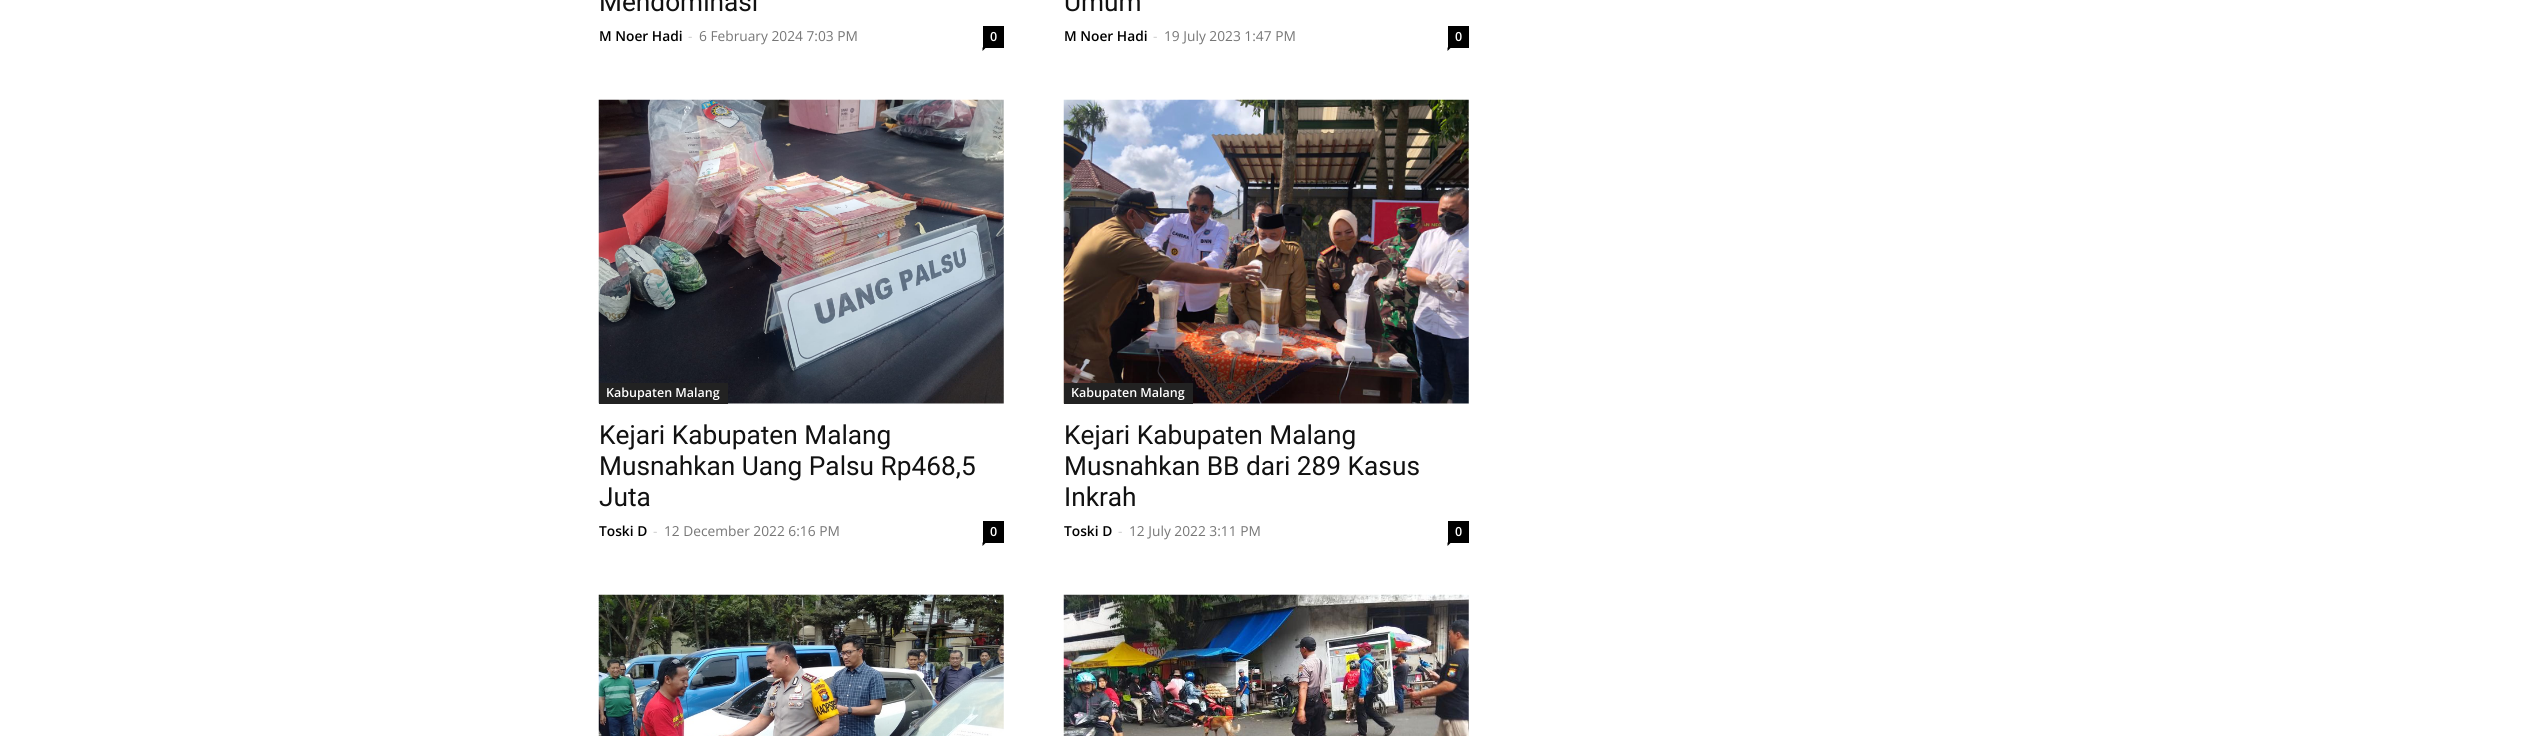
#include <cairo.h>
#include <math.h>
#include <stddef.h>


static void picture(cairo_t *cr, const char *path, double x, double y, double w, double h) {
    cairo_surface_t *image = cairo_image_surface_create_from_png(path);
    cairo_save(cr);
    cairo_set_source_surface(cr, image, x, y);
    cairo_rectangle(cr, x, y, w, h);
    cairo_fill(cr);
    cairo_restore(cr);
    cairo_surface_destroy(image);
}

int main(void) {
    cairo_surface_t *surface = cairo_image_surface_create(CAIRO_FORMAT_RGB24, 2532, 736);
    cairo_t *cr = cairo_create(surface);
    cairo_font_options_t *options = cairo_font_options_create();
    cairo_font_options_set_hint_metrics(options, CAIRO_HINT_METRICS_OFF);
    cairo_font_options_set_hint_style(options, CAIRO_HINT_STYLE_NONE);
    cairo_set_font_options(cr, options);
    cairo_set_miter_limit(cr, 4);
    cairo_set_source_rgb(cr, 1, 1, 1);
    cairo_paint(cr);
    cairo_select_font_face(cr, "Roboto", CAIRO_FONT_SLANT_NORMAL, CAIRO_FONT_WEIGHT_NORMAL);
    cairo_set_font_size(cr, 26.25);
    cairo_set_source_rgb(cr, 0.067, 0.067, 0.067);
    cairo_move_to(cr, 599, 11);
    cairo_show_text(cr, "Mendominasi");
    cairo_select_font_face(cr, "Open Sans SemiBold", CAIRO_FONT_SLANT_NORMAL, CAIRO_FONT_WEIGHT_NORMAL);
    cairo_set_font_size(cr, 13.75);
    cairo_set_source_rgb(cr, 0, 0, 0);
    cairo_move_to(cr, 599, 41);
    cairo_show_text(cr, "M Noer Hadi");
    cairo_select_font_face(cr, "Open Sans", CAIRO_FONT_SLANT_NORMAL, CAIRO_FONT_WEIGHT_NORMAL);
    cairo_set_source_rgb(cr, 0.8, 0.8, 0.8);
    cairo_move_to(cr, 688, 41);
    cairo_show_text(cr, "-");
    cairo_set_source_rgb(cr, 0.463, 0.463, 0.463);
    cairo_move_to(cr, 699, 41);
    cairo_show_text(cr, "6 February 2024 7:03 PM");
    cairo_set_source_rgb(cr, 0, 0, 0);
    cairo_rectangle(cr, 983, 26, 21, 22);
    cairo_fill(cr);
    cairo_select_font_face(cr, "Open Sans SemiBold", CAIRO_FONT_SLANT_NORMAL, CAIRO_FONT_WEIGHT_NORMAL);
    cairo_set_font_size(cr, 12.5);
    cairo_set_source_rgb(cr, 1, 1, 1);
    cairo_move_to(cr, 990, 41);
    cairo_show_text(cr, "0");
    cairo_set_source_rgb(cr, 0, 0, 0);
    cairo_new_path(cr);
    cairo_move_to(cr, 982.5, 47.5);
    cairo_line_to(cr, 986, 47.5);
    cairo_line_to(cr, 982.5, 51);
    cairo_close_path(cr);
    cairo_fill(cr);
    cairo_select_font_face(cr, "Roboto", CAIRO_FONT_SLANT_NORMAL, CAIRO_FONT_WEIGHT_NORMAL);
    cairo_set_font_size(cr, 26.25);
    cairo_set_source_rgb(cr, 0.067, 0.067, 0.067);
    cairo_move_to(cr, 1064, 11);
    cairo_show_text(cr, "Umum");
    cairo_select_font_face(cr, "Open Sans SemiBold", CAIRO_FONT_SLANT_NORMAL, CAIRO_FONT_WEIGHT_NORMAL);
    cairo_set_font_size(cr, 13.75);
    cairo_set_source_rgb(cr, 0, 0, 0);
    cairo_move_to(cr, 1064, 41);
    cairo_show_text(cr, "M Noer Hadi");
    cairo_select_font_face(cr, "Open Sans", CAIRO_FONT_SLANT_NORMAL, CAIRO_FONT_WEIGHT_NORMAL);
    cairo_set_source_rgb(cr, 0.8, 0.8, 0.8);
    cairo_move_to(cr, 1153, 41);
    cairo_show_text(cr, "-");
    cairo_set_source_rgb(cr, 0.463, 0.463, 0.463);
    cairo_move_to(cr, 1164, 41);
    cairo_show_text(cr, "19 July 2023 1:47 PM");
    cairo_set_source_rgb(cr, 0, 0, 0);
    cairo_rectangle(cr, 1448, 26, 21, 22);
    cairo_fill(cr);
    cairo_select_font_face(cr, "Open Sans SemiBold", CAIRO_FONT_SLANT_NORMAL, CAIRO_FONT_WEIGHT_NORMAL);
    cairo_set_font_size(cr, 12.5);
    cairo_set_source_rgb(cr, 1, 1, 1);
    cairo_move_to(cr, 1455, 41);
    cairo_show_text(cr, "0");
    cairo_set_source_rgb(cr, 0, 0, 0);
    cairo_new_path(cr);
    cairo_move_to(cr, 1447.5, 47.5);
    cairo_line_to(cr, 1451, 47.5);
    cairo_line_to(cr, 1447.5, 51);
    cairo_close_path(cr);
    cairo_fill(cr);
    picture(cr, "img1.png", 598, 99, 406, 305);
    cairo_set_source_rgb(cr, 0.133, 0.133, 0.133);
    cairo_rectangle(cr, 599, 383, 129, 21);
    cairo_fill(cr);
    cairo_set_source_rgb(cr, 1, 1, 1);
    cairo_move_to(cr, 606, 397);
    cairo_show_text(cr, "Kabupaten Malang");
    cairo_select_font_face(cr, "Roboto", CAIRO_FONT_SLANT_NORMAL, CAIRO_FONT_WEIGHT_NORMAL);
    cairo_set_font_size(cr, 26.25);
    cairo_set_source_rgb(cr, 0.067, 0.067, 0.067);
    cairo_move_to(cr, 599, 444);
    cairo_show_text(cr, "Kejari Kabupaten Malang");
    cairo_move_to(cr, 599, 475);
    cairo_show_text(cr, "Musnahkan Uang Palsu Rp468,5");
    cairo_move_to(cr, 599, 506);
    cairo_show_text(cr, "Juta");
    cairo_select_font_face(cr, "Open Sans SemiBold", CAIRO_FONT_SLANT_NORMAL, CAIRO_FONT_WEIGHT_NORMAL);
    cairo_set_font_size(cr, 13.75);
    cairo_set_source_rgb(cr, 0, 0, 0);
    cairo_move_to(cr, 599, 536);
    cairo_show_text(cr, "Toski D");
    cairo_select_font_face(cr, "Open Sans", CAIRO_FONT_SLANT_NORMAL, CAIRO_FONT_WEIGHT_NORMAL);
    cairo_set_source_rgb(cr, 0.8, 0.8, 0.8);
    cairo_move_to(cr, 653, 536);
    cairo_show_text(cr, "-");
    cairo_set_source_rgb(cr, 0.463, 0.463, 0.463);
    cairo_move_to(cr, 664, 536);
    cairo_show_text(cr, "12 December 2022 6:16 PM");
    cairo_set_source_rgb(cr, 0, 0, 0);
    cairo_rectangle(cr, 983, 521, 21, 22);
    cairo_fill(cr);
    cairo_select_font_face(cr, "Open Sans SemiBold", CAIRO_FONT_SLANT_NORMAL, CAIRO_FONT_WEIGHT_NORMAL);
    cairo_set_font_size(cr, 12.5);
    cairo_set_source_rgb(cr, 1, 1, 1);
    cairo_move_to(cr, 990, 536);
    cairo_show_text(cr, "0");
    cairo_set_source_rgb(cr, 0, 0, 0);
    cairo_new_path(cr);
    cairo_move_to(cr, 982.5, 542.5);
    cairo_line_to(cr, 986, 542.5);
    cairo_line_to(cr, 982.5, 546);
    cairo_close_path(cr);
    cairo_fill(cr);
    picture(cr, "img2.png", 1063, 99, 406, 305);
    cairo_set_source_rgb(cr, 0.133, 0.133, 0.133);
    cairo_rectangle(cr, 1064, 383, 129, 21);
    cairo_fill(cr);
    cairo_set_source_rgb(cr, 1, 1, 1);
    cairo_move_to(cr, 1071, 397);
    cairo_show_text(cr, "Kabupaten Malang");
    cairo_select_font_face(cr, "Roboto", CAIRO_FONT_SLANT_NORMAL, CAIRO_FONT_WEIGHT_NORMAL);
    cairo_set_font_size(cr, 26.25);
    cairo_set_source_rgb(cr, 0.067, 0.067, 0.067);
    cairo_move_to(cr, 1064, 444);
    cairo_show_text(cr, "Kejari Kabupaten Malang");
    cairo_move_to(cr, 1064, 475);
    cairo_show_text(cr, "Musnahkan BB dari 289 Kasus");
    cairo_move_to(cr, 1064, 506);
    cairo_show_text(cr, "Inkrah");
    cairo_select_font_face(cr, "Open Sans SemiBold", CAIRO_FONT_SLANT_NORMAL, CAIRO_FONT_WEIGHT_NORMAL);
    cairo_set_font_size(cr, 13.75);
    cairo_set_source_rgb(cr, 0, 0, 0);
    cairo_move_to(cr, 1064, 536);
    cairo_show_text(cr, "Toski D");
    cairo_select_font_face(cr, "Open Sans", CAIRO_FONT_SLANT_NORMAL, CAIRO_FONT_WEIGHT_NORMAL);
    cairo_set_source_rgb(cr, 0.8, 0.8, 0.8);
    cairo_move_to(cr, 1118, 536);
    cairo_show_text(cr, "-");
    cairo_set_source_rgb(cr, 0.463, 0.463, 0.463);
    cairo_move_to(cr, 1129, 536);
    cairo_show_text(cr, "12 July 2022 3:11 PM");
    cairo_set_source_rgb(cr, 0, 0, 0);
    cairo_rectangle(cr, 1448, 521, 21, 22);
    cairo_fill(cr);
    cairo_select_font_face(cr, "Open Sans SemiBold", CAIRO_FONT_SLANT_NORMAL, CAIRO_FONT_WEIGHT_NORMAL);
    cairo_set_font_size(cr, 12.5);
    cairo_set_source_rgb(cr, 1, 1, 1);
    cairo_move_to(cr, 1455, 536);
    cairo_show_text(cr, "0");
    cairo_set_source_rgb(cr, 0, 0, 0);
    cairo_new_path(cr);
    cairo_move_to(cr, 1447.5, 542.5);
    cairo_line_to(cr, 1451, 542.5);
    cairo_line_to(cr, 1447.5, 546);
    cairo_close_path(cr);
    cairo_fill(cr);
    picture(cr, "img3.png", 598, 594, 406, 142);
    picture(cr, "img4.png", 1063, 594, 406, 142);
    cairo_surface_write_to_png(surface, "page.png");
    cairo_font_options_destroy(options);
    cairo_destroy(cr);
    cairo_surface_destroy(surface);
    return 0;
}
